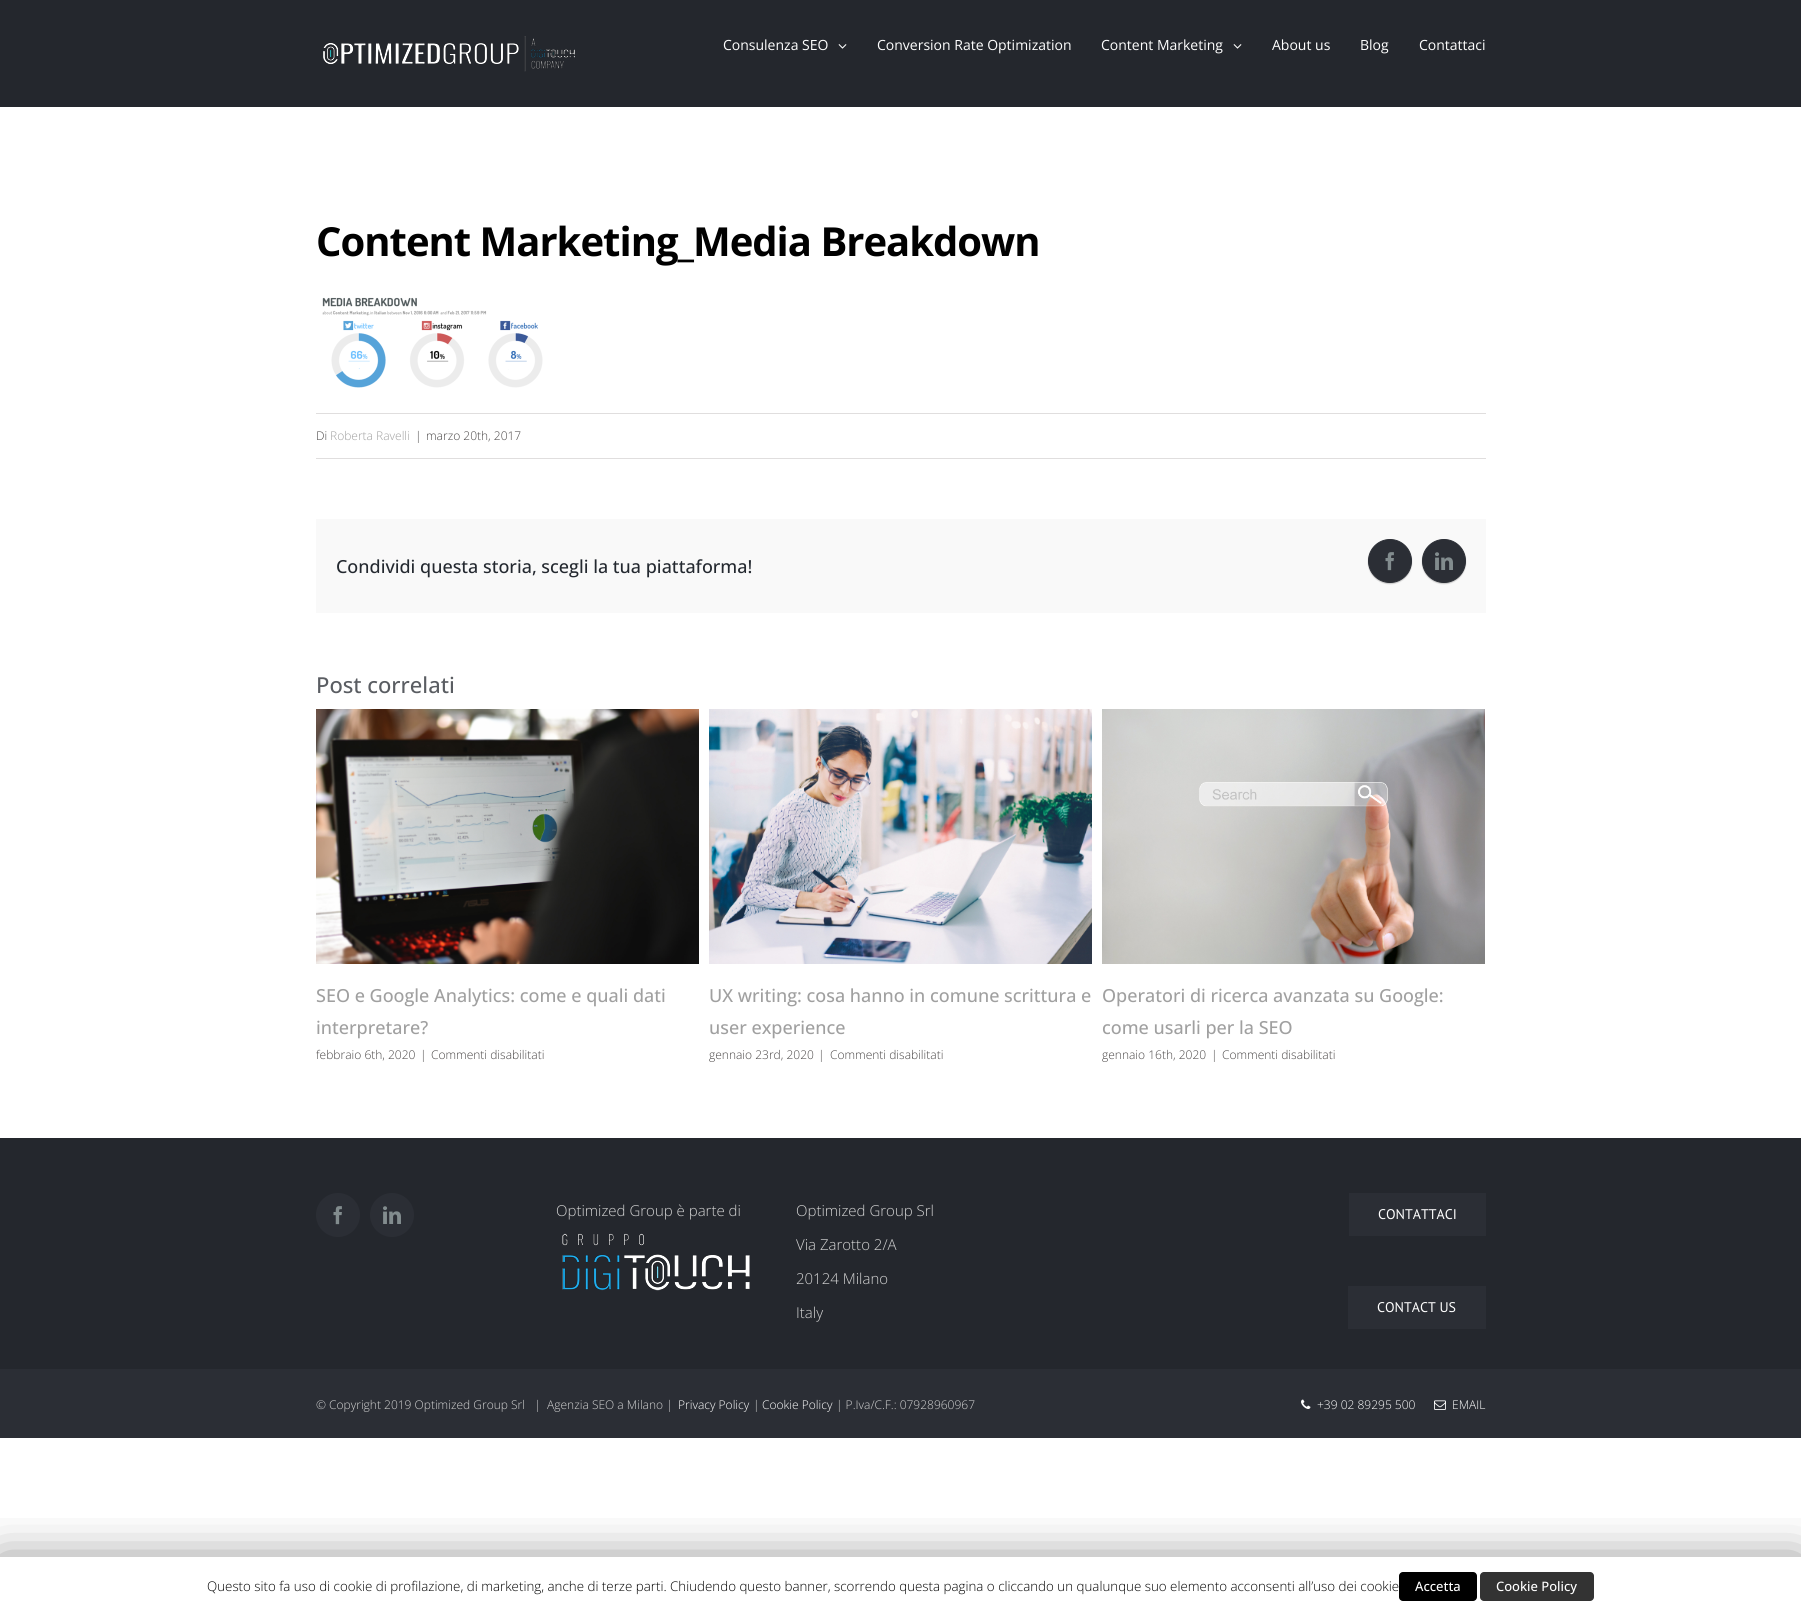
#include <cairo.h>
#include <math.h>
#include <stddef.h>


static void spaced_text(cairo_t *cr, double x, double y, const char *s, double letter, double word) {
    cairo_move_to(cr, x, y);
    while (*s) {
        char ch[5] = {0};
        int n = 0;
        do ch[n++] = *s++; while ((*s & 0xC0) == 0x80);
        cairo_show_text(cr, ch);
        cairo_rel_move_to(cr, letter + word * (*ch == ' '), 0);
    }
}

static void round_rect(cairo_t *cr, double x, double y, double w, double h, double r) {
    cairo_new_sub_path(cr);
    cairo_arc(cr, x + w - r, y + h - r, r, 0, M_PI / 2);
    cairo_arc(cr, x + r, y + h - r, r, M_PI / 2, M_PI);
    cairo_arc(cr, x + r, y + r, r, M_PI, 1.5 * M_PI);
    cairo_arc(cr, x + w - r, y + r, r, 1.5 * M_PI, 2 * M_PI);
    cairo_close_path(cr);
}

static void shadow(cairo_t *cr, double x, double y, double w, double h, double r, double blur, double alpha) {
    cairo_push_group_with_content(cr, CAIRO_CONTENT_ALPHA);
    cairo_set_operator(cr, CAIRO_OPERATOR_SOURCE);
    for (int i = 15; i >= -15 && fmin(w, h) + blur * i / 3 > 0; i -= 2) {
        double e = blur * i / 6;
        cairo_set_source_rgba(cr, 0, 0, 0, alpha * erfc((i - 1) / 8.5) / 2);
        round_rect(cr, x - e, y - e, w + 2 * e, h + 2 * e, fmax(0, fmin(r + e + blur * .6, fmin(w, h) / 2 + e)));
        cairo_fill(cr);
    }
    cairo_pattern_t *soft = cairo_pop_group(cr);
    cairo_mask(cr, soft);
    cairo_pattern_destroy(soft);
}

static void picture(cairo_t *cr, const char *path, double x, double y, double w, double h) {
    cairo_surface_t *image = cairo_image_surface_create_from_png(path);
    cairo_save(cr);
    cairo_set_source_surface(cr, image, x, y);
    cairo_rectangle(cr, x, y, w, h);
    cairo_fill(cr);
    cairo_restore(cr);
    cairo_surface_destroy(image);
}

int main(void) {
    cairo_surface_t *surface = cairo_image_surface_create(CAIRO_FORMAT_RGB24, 1801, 1613);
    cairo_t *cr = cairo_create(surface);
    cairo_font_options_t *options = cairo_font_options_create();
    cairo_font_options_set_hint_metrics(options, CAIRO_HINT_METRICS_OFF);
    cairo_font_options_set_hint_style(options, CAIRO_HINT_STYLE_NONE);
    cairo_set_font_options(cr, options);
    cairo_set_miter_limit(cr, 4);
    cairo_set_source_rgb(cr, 1, 1, 1);
    cairo_paint(cr);
    cairo_set_source_rgb(cr, 0.141, 0.153, 0.176);
    cairo_rectangle(cr, 0, 0, 1801, 107);
    cairo_fill(cr);
    picture(cr, "img1.png", 323, 36, 252, 36);
    cairo_select_font_face(cr, "Open Sans", CAIRO_FONT_SLANT_NORMAL, CAIRO_FONT_WEIGHT_NORMAL);
    cairo_set_font_size(cr, 14);
    cairo_set_source_rgb(cr, 1, 1, 1);
    cairo_move_to(cr, 723, 50);
    cairo_show_text(cr, "Consulenza SEO");
    picture(cr, "img2.png", 838, 44, 9, 5);
    cairo_move_to(cr, 877, 50);
    cairo_show_text(cr, "Conversion Rate Optimization");
    cairo_move_to(cr, 1101, 50);
    cairo_show_text(cr, "Content Marketing");
    picture(cr, "img2.png", 1233, 44, 9, 5);
    cairo_move_to(cr, 1272, 50);
    cairo_show_text(cr, "About us");
    cairo_move_to(cr, 1360, 50);
    cairo_show_text(cr, "Blog");
    cairo_move_to(cr, 1419, 50);
    cairo_show_text(cr, "Contattaci");
    cairo_select_font_face(cr, "Open Sans", CAIRO_FONT_SLANT_NORMAL, CAIRO_FONT_WEIGHT_BOLD);
    cairo_set_font_size(cr, 40);
    cairo_set_source_rgb(cr, 0, 0, 0);
    spaced_text(cr, 316, 256, "Content Marketing_Media Breakdown", -1, 0);
    picture(cr, "img3.png", 322, 297, 221, 91);
    cairo_set_source_rgb(cr, 0.878, 0.871, 0.871);
    cairo_rectangle(cr, 316, 413, 1170, 1);
    cairo_fill(cr);
    cairo_rectangle(cr, 316, 458, 1170, 1);
    cairo_fill(cr);
    cairo_select_font_face(cr, "Open Sans Light", CAIRO_FONT_SLANT_NORMAL, CAIRO_FONT_WEIGHT_NORMAL);
    cairo_set_font_size(cr, 12);
    cairo_set_source_rgb(cr, 0.286, 0.275, 0.275);
    cairo_move_to(cr, 316, 440);
    cairo_show_text(cr, "Di");
    cairo_set_source_rgb(cr, 0.627, 0.627, 0.627);
    cairo_move_to(cr, 330, 440);
    cairo_show_text(cr, "Roberta Ravelli");
    cairo_set_source_rgb(cr, 0.286, 0.275, 0.275);
    cairo_move_to(cr, 415, 440);
    cairo_show_text(cr, "|");
    cairo_move_to(cr, 426, 440);
    cairo_show_text(cr, "marzo 20th, 2017");
    cairo_set_source_rgb(cr, 0.973, 0.973, 0.973);
    cairo_rectangle(cr, 316, 519, 1170, 94);
    cairo_fill(cr);
    cairo_select_font_face(cr, "Open Sans Medium", CAIRO_FONT_SLANT_NORMAL, CAIRO_FONT_WEIGHT_NORMAL);
    cairo_set_font_size(cr, 18);
    cairo_set_source_rgb(cr, 0.141, 0.161, 0.188);
    cairo_move_to(cr, 336, 573);
    cairo_show_text(cr, "Condividi questa storia, scegli la tua piattaforma!");
    cairo_set_source_rgb(cr, 0, 0, 0);
    shadow(cr, 1368, 540, 44, 44, 22, 0.5, 0.2);
    cairo_set_source_rgb(cr, 0.169, 0.18, 0.208);
    cairo_arc(cr, 1390, 561, 21.5, 0, 2 * M_PI);
    cairo_fill_preserve(cr);
    cairo_set_line_width(cr, 1);
    cairo_stroke(cr);
    picture(cr, "img4.png", 1385, 552, 9, 19);
    cairo_set_source_rgb(cr, 0, 0, 0);
    shadow(cr, 1422, 540, 44, 44, 22, 0.5, 0.2);
    cairo_set_source_rgb(cr, 0.169, 0.18, 0.208);
    cairo_arc(cr, 1444, 561, 21.5, 0, 2 * M_PI);
    cairo_fill_preserve(cr);
    cairo_stroke(cr);
    picture(cr, "img5.png", 1435, 552, 18, 18);
    cairo_set_font_size(cr, 22);
    cairo_set_source_rgb(cr, 0.353, 0.365, 0.384);
    cairo_move_to(cr, 316, 693);
    cairo_show_text(cr, "Post correlati");
    picture(cr, "img6.png", 316, 709, 383, 255);
    cairo_set_font_size(cr, 18);
    cairo_set_source_rgb(cr, 0.627, 0.627, 0.627);
    cairo_move_to(cr, 316, 1002);
    cairo_show_text(cr, "SEO e Google Analytics: come e quali dati");
    cairo_move_to(cr, 316, 1034);
    cairo_show_text(cr, "interpretare?");
    cairo_select_font_face(cr, "Open Sans Light", CAIRO_FONT_SLANT_NORMAL, CAIRO_FONT_WEIGHT_NORMAL);
    cairo_set_font_size(cr, 12);
    cairo_set_source_rgb(cr, 0.286, 0.275, 0.275);
    cairo_move_to(cr, 316, 1059);
    cairo_show_text(cr, "febbraio 6th, 2020");
    cairo_move_to(cr, 420, 1059);
    cairo_show_text(cr, "|");
    cairo_move_to(cr, 431, 1059);
    cairo_show_text(cr, "Commenti disabilitati");
    picture(cr, "img7.png", 709, 709, 383, 255);
    cairo_select_font_face(cr, "Open Sans Medium", CAIRO_FONT_SLANT_NORMAL, CAIRO_FONT_WEIGHT_NORMAL);
    cairo_set_font_size(cr, 18);
    cairo_set_source_rgb(cr, 0.627, 0.627, 0.627);
    cairo_move_to(cr, 709, 1002);
    cairo_show_text(cr, "UX writing: cosa hanno in comune scrittura e");
    cairo_move_to(cr, 709, 1034);
    cairo_show_text(cr, "user experience");
    cairo_select_font_face(cr, "Open Sans Light", CAIRO_FONT_SLANT_NORMAL, CAIRO_FONT_WEIGHT_NORMAL);
    cairo_set_font_size(cr, 12);
    cairo_set_source_rgb(cr, 0.286, 0.275, 0.275);
    cairo_move_to(cr, 709, 1059);
    cairo_show_text(cr, "gennaio 23rd, 2020");
    cairo_move_to(cr, 818, 1059);
    cairo_show_text(cr, "|");
    cairo_move_to(cr, 830, 1059);
    cairo_show_text(cr, "Commenti disabilitati");
    picture(cr, "img8.png", 1102, 709, 383, 255);
    cairo_select_font_face(cr, "Open Sans Medium", CAIRO_FONT_SLANT_NORMAL, CAIRO_FONT_WEIGHT_NORMAL);
    cairo_set_font_size(cr, 18);
    cairo_set_source_rgb(cr, 0.627, 0.627, 0.627);
    cairo_move_to(cr, 1102, 1002);
    cairo_show_text(cr, "Operatori di ricerca avanzata su Google:");
    cairo_move_to(cr, 1102, 1034);
    cairo_show_text(cr, "come usarli per la SEO");
    cairo_select_font_face(cr, "Open Sans Light", CAIRO_FONT_SLANT_NORMAL, CAIRO_FONT_WEIGHT_NORMAL);
    cairo_set_font_size(cr, 12);
    cairo_set_source_rgb(cr, 0.286, 0.275, 0.275);
    cairo_move_to(cr, 1102, 1059);
    cairo_show_text(cr, "gennaio 16th, 2020");
    cairo_move_to(cr, 1211, 1059);
    cairo_show_text(cr, "|");
    cairo_move_to(cr, 1222, 1059);
    cairo_show_text(cr, "Commenti disabilitati");
    cairo_set_source_rgb(cr, 0.141, 0.153, 0.176);
    cairo_rectangle(cr, 0, 1138, 1801, 231);
    cairo_fill(cr);
    cairo_set_source_rgb(cr, 0.169, 0.18, 0.208);
    cairo_arc(cr, 338, 1215, 22, 0, 2 * M_PI);
    cairo_fill(cr);
    picture(cr, "img4.png", 333, 1206, 9, 19);
    cairo_arc(cr, 392, 1215, 22, 0, 2 * M_PI);
    cairo_fill(cr);
    picture(cr, "img5.png", 383, 1206, 18, 18);
    cairo_set_font_size(cr, 15);
    cairo_set_source_rgb(cr, 0.827, 0.827, 0.827);
    cairo_move_to(cr, 556, 1216);
    cairo_show_text(cr, "Optimized Group è parte di");
    picture(cr, "img9.png", 562, 1233, 188, 58);
    cairo_move_to(cr, 796, 1216);
    cairo_show_text(cr, "Optimized Group Srl");
    cairo_move_to(cr, 796, 1250);
    cairo_show_text(cr, "Via Zarotto 2/A");
    cairo_move_to(cr, 796, 1284);
    cairo_show_text(cr, "20124 Milano");
    cairo_move_to(cr, 796, 1318);
    cairo_show_text(cr, "Italy");
    cairo_set_source_rgb(cr, 0.169, 0.18, 0.208);
    cairo_rectangle(cr, 1349, 1193, 137, 43);
    cairo_fill(cr);
    cairo_select_font_face(cr, "PT Sans", CAIRO_FONT_SLANT_NORMAL, CAIRO_FONT_WEIGHT_NORMAL);
    cairo_set_font_size(cr, 14);
    cairo_set_source_rgb(cr, 1, 1, 1);
    cairo_move_to(cr, 1378, 1219);
    cairo_show_text(cr, "CONTATTACI");
    cairo_set_source_rgb(cr, 0.169, 0.18, 0.208);
    cairo_rectangle(cr, 1348, 1286, 138, 43);
    cairo_fill(cr);
    cairo_set_source_rgb(cr, 1, 1, 1);
    cairo_move_to(cr, 1377, 1312);
    cairo_show_text(cr, "CONTACT US");
    cairo_set_source_rgb(cr, 0.169, 0.18, 0.208);
    cairo_rectangle(cr, 0, 1369, 1801, 69);
    cairo_fill(cr);
    cairo_select_font_face(cr, "Open Sans Light", CAIRO_FONT_SLANT_NORMAL, CAIRO_FONT_WEIGHT_NORMAL);
    cairo_set_font_size(cr, 12);
    cairo_set_source_rgb(cr, 0.827, 0.827, 0.827);
    cairo_move_to(cr, 316, 1409);
    cairo_show_text(cr, "© Copyright 2019 Optimized Group Srl   |  Agenzia SEO a Milano |");
    cairo_set_source_rgb(cr, 1, 1, 1);
    cairo_move_to(cr, 678, 1409);
    cairo_show_text(cr, "Privacy Policy");
    cairo_set_source_rgb(cr, 0.827, 0.827, 0.827);
    cairo_move_to(cr, 753, 1409);
    cairo_show_text(cr, "|");
    cairo_set_source_rgb(cr, 1, 1, 1);
    cairo_move_to(cr, 762, 1409);
    cairo_show_text(cr, "Cookie Policy");
    cairo_set_source_rgb(cr, 0.827, 0.827, 0.827);
    cairo_move_to(cr, 836, 1409);
    cairo_show_text(cr, "| P.Iva/C.F.: 07928960967");
    picture(cr, "img10.png", 1301, 1399, 10, 10);
    cairo_set_source_rgb(cr, 1, 1, 1);
    cairo_move_to(cr, 1317, 1409);
    cairo_show_text(cr, "+39 02 89295 500");
    picture(cr, "img11.png", 1434, 1400, 12, 10);
    cairo_move_to(cr, 1452, 1409);
    cairo_show_text(cr, "EMAIL");
    cairo_save(cr);
    cairo_rectangle(cr, 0, 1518, 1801, 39);
    cairo_clip(cr);
    cairo_set_source_rgb(cr, 0, 0, 0);
    shadow(cr, 0, 1562, 1801, 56, 0, 25, 0.5);
    cairo_restore(cr);
    cairo_set_font_size(cr, 13.33);
    cairo_set_source_rgb(cr, 0, 0, 0);
    cairo_move_to(cr, 207, 1591);
    cairo_show_text(cr, "Questo sito fa uso di cookie di profilazione, di marketing, anche di terze parti. Chiudendo questo banner, scorrendo questa pagina o cliccando un qualunque suo elemento acconsenti all’uso dei cookie");
    round_rect(cr, 1399, 1572, 78, 29, 4);
    cairo_fill(cr);
    cairo_select_font_face(cr, "Open Sans Medium", CAIRO_FONT_SLANT_NORMAL, CAIRO_FONT_WEIGHT_NORMAL);
    cairo_set_font_size(cr, 13);
    cairo_set_source_rgb(cr, 1, 1, 1);
    cairo_move_to(cr, 1415, 1591);
    cairo_show_text(cr, "Accetta");
    cairo_set_source_rgb(cr, 0.2, 0.2, 0.2);
    round_rect(cr, 1480, 1572, 114, 29, 4);
    cairo_fill(cr);
    cairo_set_source_rgb(cr, 1, 1, 1);
    cairo_move_to(cr, 1496, 1591);
    cairo_show_text(cr, "Cookie Policy");
    cairo_surface_write_to_png(surface, "page.png");
    cairo_font_options_destroy(options);
    cairo_destroy(cr);
    cairo_surface_destroy(surface);
    return 0;
}
